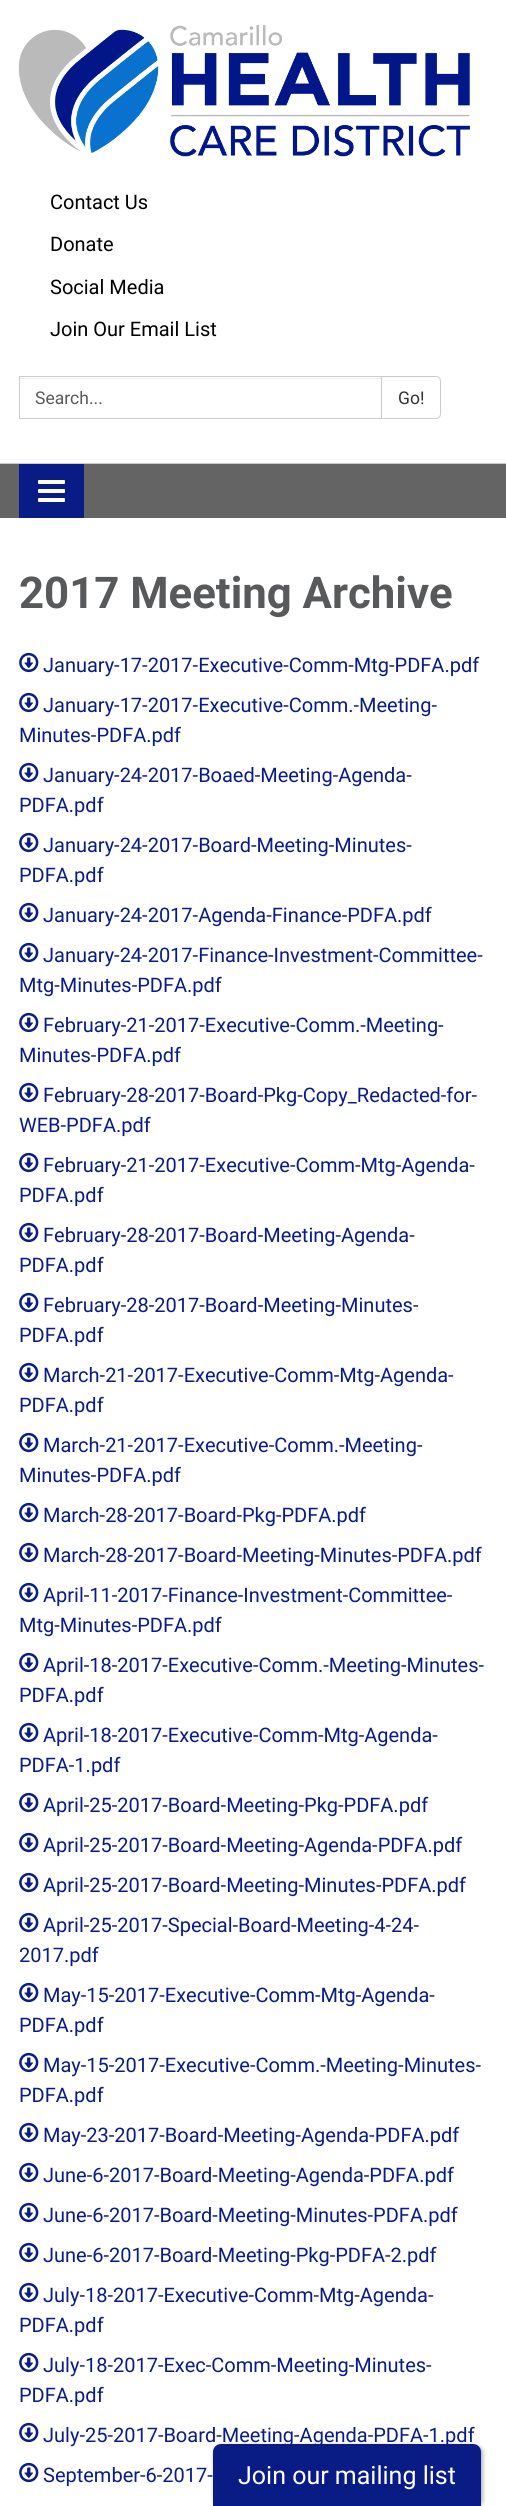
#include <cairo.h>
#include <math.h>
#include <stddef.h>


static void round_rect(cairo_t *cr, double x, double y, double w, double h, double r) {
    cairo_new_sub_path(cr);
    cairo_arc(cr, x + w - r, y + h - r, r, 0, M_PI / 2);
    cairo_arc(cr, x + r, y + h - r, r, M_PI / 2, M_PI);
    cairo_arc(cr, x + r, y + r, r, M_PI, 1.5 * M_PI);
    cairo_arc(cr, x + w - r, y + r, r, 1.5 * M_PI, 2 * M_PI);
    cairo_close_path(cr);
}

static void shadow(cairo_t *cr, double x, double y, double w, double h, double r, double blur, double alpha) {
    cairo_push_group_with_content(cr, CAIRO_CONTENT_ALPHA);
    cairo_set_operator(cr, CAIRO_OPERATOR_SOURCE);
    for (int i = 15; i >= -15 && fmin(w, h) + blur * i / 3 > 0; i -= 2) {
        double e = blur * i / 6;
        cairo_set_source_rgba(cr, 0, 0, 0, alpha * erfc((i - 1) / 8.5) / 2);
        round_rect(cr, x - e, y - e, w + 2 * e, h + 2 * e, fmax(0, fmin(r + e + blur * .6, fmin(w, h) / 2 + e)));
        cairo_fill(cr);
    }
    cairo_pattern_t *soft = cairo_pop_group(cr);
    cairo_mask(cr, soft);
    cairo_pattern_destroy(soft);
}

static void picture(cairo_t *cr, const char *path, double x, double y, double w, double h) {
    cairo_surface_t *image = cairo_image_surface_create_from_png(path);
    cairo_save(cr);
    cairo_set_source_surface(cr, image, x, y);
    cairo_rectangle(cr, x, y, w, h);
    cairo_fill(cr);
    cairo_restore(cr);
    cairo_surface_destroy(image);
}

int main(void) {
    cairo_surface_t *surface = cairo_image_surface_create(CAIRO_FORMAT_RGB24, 506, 2506);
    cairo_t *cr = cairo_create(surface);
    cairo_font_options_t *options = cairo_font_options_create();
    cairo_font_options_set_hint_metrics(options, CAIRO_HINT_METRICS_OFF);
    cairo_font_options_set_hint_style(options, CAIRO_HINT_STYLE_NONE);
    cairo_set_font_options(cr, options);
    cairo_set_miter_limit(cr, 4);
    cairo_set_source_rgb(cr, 0.392, 0.392, 0.392);
    cairo_paint(cr);
    cairo_set_source_rgb(cr, 1, 1, 1);
    cairo_rectangle(cr, 0, 0, 506, 463);
    cairo_fill(cr);
    picture(cr, "img1.png", 18, 25, 452, 132);
    cairo_select_font_face(cr, "Roboto", CAIRO_FONT_SLANT_NORMAL, CAIRO_FONT_WEIGHT_NORMAL);
    cairo_set_font_size(cr, 20);
    cairo_set_source_rgb(cr, 0, 0, 0);
    cairo_move_to(cr, 50, 209);
    cairo_show_text(cr, "Contact Us");
    cairo_move_to(cr, 50, 251);
    cairo_show_text(cr, "Donate");
    cairo_move_to(cr, 50, 294);
    cairo_show_text(cr, "Social Media");
    cairo_move_to(cr, 50, 336);
    cairo_show_text(cr, "Join Our Email List");
    cairo_set_source_rgb(cr, 0.925, 0.925, 0.925);
    cairo_rectangle(cr, 20, 378, 361, 1);
    cairo_fill(cr);
    cairo_rectangle(cr, 19.5, 376.5, 363, 42);
    cairo_set_source_rgb(cr, 0.8, 0.8, 0.8);
    cairo_set_line_width(cr, 1);
    cairo_stroke(cr);
    cairo_set_font_size(cr, 17.5);
    cairo_set_source_rgb(cr, 0.345, 0.349, 0.357);
    cairo_move_to(cr, 35, 404);
    cairo_show_text(cr, "Search...");
    cairo_set_source_rgb(cr, 1, 1, 1);
    cairo_new_path(cr);
    cairo_move_to(cr, 381.5, 376.5);
    cairo_line_to(cr, 436, 376.5);
    cairo_curve_to(cr, 438.5, 376.5, 440.5, 378.5, 440.5, 381);
    cairo_line_to(cr, 440.5, 414);
    cairo_curve_to(cr, 440.5, 416.5, 438.5, 418.5, 436, 418.5);
    cairo_line_to(cr, 381.5, 418.5);
    cairo_close_path(cr);
    cairo_fill_preserve(cr);
    cairo_set_source_rgb(cr, 0.8, 0.8, 0.8);
    cairo_stroke(cr);
    cairo_set_source_rgb(cr, 0.2, 0.2, 0.2);
    cairo_move_to(cr, 398, 404);
    cairo_show_text(cr, "Go!");
    cairo_set_source_rgb(cr, 0.8, 0.8, 0.8);
    cairo_rectangle(cr, 0, 463, 506, 1);
    cairo_fill(cr);
    cairo_set_source_rgb(cr, 0.039, 0.11, 0.522);
    cairo_rectangle(cr, 19, 464, 65, 54);
    cairo_fill(cr);
    cairo_set_source_rgb(cr, 1, 1, 1);
    round_rect(cr, 38, 480, 27, 4, 1);
    cairo_fill(cr);
    round_rect(cr, 38, 489, 27, 4, 1);
    cairo_fill(cr);
    round_rect(cr, 38, 498, 27, 4, 1);
    cairo_fill(cr);
    cairo_rectangle(cr, 0, 518, 506, 1988);
    cairo_fill(cr);
    cairo_select_font_face(cr, "Roboto", CAIRO_FONT_SLANT_NORMAL, CAIRO_FONT_WEIGHT_BOLD);
    cairo_set_font_size(cr, 43.75);
    cairo_set_source_rgb(cr, 0.345, 0.349, 0.357);
    cairo_move_to(cr, 19, 608);
    cairo_show_text(cr, "2017 Meeting Archive");
    picture(cr, "img2.png", 19, 652, 20, 21);
    cairo_select_font_face(cr, "Roboto", CAIRO_FONT_SLANT_NORMAL, CAIRO_FONT_WEIGHT_NORMAL);
    cairo_set_font_size(cr, 20);
    cairo_set_source_rgb(cr, 0.039, 0.11, 0.522);
    cairo_move_to(cr, 43, 672);
    cairo_show_text(cr, "January-17-2017-Executive-Comm-Mtg-PDFA.pdf");
    picture(cr, "img2.png", 19, 692, 20, 21);
    cairo_move_to(cr, 43, 712);
    cairo_show_text(cr, "January-17-2017-Executive-Comm.-Meeting-");
    cairo_move_to(cr, 19, 742);
    cairo_show_text(cr, "Minutes-PDFA.pdf");
    picture(cr, "img2.png", 19, 762, 20, 21);
    cairo_move_to(cr, 43, 782);
    cairo_show_text(cr, "January-24-2017-Boaed-Meeting-Agenda-");
    cairo_move_to(cr, 19, 812);
    cairo_show_text(cr, "PDFA.pdf");
    picture(cr, "img2.png", 19, 832, 20, 21);
    cairo_move_to(cr, 43, 852);
    cairo_show_text(cr, "January-24-2017-Board-Meeting-Minutes-");
    cairo_move_to(cr, 19, 882);
    cairo_show_text(cr, "PDFA.pdf");
    picture(cr, "img2.png", 19, 902, 20, 21);
    cairo_move_to(cr, 43, 922);
    cairo_show_text(cr, "January-24-2017-Agenda-Finance-PDFA.pdf");
    picture(cr, "img2.png", 19, 942, 20, 21);
    cairo_move_to(cr, 43, 962);
    cairo_show_text(cr, "January-24-2017-Finance-Investment-Committee-");
    cairo_move_to(cr, 19, 992);
    cairo_show_text(cr, "Mtg-Minutes-PDFA.pdf");
    picture(cr, "img2.png", 19, 1012, 20, 21);
    cairo_move_to(cr, 43, 1032);
    cairo_show_text(cr, "February-21-2017-Executive-Comm.-Meeting-");
    cairo_move_to(cr, 19, 1062);
    cairo_show_text(cr, "Minutes-PDFA.pdf");
    picture(cr, "img2.png", 19, 1082, 20, 21);
    cairo_move_to(cr, 43, 1102);
    cairo_show_text(cr, "February-28-2017-Board-Pkg-Copy_Redacted-for-");
    cairo_move_to(cr, 19, 1132);
    cairo_show_text(cr, "WEB-PDFA.pdf");
    picture(cr, "img2.png", 19, 1152, 20, 21);
    cairo_move_to(cr, 43, 1172);
    cairo_show_text(cr, "February-21-2017-Executive-Comm-Mtg-Agenda-");
    cairo_move_to(cr, 19, 1202);
    cairo_show_text(cr, "PDFA.pdf");
    picture(cr, "img2.png", 19, 1222, 20, 21);
    cairo_move_to(cr, 43, 1242);
    cairo_show_text(cr, "February-28-2017-Board-Meeting-Agenda-");
    cairo_move_to(cr, 19, 1272);
    cairo_show_text(cr, "PDFA.pdf");
    picture(cr, "img2.png", 19, 1292, 20, 21);
    cairo_move_to(cr, 43, 1312);
    cairo_show_text(cr, "February-28-2017-Board-Meeting-Minutes-");
    cairo_move_to(cr, 19, 1342);
    cairo_show_text(cr, "PDFA.pdf");
    picture(cr, "img2.png", 19, 1362, 20, 21);
    cairo_move_to(cr, 43, 1382);
    cairo_show_text(cr, "March-21-2017-Executive-Comm-Mtg-Agenda-");
    cairo_move_to(cr, 19, 1412);
    cairo_show_text(cr, "PDFA.pdf");
    picture(cr, "img2.png", 19, 1432, 20, 21);
    cairo_move_to(cr, 43, 1452);
    cairo_show_text(cr, "March-21-2017-Executive-Comm.-Meeting-");
    cairo_move_to(cr, 19, 1482);
    cairo_show_text(cr, "Minutes-PDFA.pdf");
    picture(cr, "img2.png", 19, 1502, 20, 21);
    cairo_move_to(cr, 43, 1522);
    cairo_show_text(cr, "March-28-2017-Board-Pkg-PDFA.pdf");
    picture(cr, "img2.png", 19, 1542, 20, 21);
    cairo_move_to(cr, 43, 1562);
    cairo_show_text(cr, "March-28-2017-Board-Meeting-Minutes-PDFA.pdf");
    picture(cr, "img2.png", 19, 1582, 20, 21);
    cairo_move_to(cr, 43, 1602);
    cairo_show_text(cr, "April-11-2017-Finance-Investment-Committee-");
    cairo_move_to(cr, 19, 1632);
    cairo_show_text(cr, "Mtg-Minutes-PDFA.pdf");
    picture(cr, "img2.png", 19, 1652, 20, 21);
    cairo_move_to(cr, 43, 1672);
    cairo_show_text(cr, "April-18-2017-Executive-Comm.-Meeting-Minutes-");
    cairo_move_to(cr, 19, 1702);
    cairo_show_text(cr, "PDFA.pdf");
    picture(cr, "img2.png", 19, 1722, 20, 21);
    cairo_move_to(cr, 43, 1742);
    cairo_show_text(cr, "April-18-2017-Executive-Comm-Mtg-Agenda-");
    cairo_move_to(cr, 19, 1772);
    cairo_show_text(cr, "PDFA-1.pdf");
    picture(cr, "img2.png", 19, 1792, 20, 21);
    cairo_move_to(cr, 43, 1812);
    cairo_show_text(cr, "April-25-2017-Board-Meeting-Pkg-PDFA.pdf");
    picture(cr, "img2.png", 19, 1832, 20, 21);
    cairo_move_to(cr, 43, 1852);
    cairo_show_text(cr, "April-25-2017-Board-Meeting-Agenda-PDFA.pdf");
    picture(cr, "img2.png", 19, 1872, 20, 21);
    cairo_move_to(cr, 43, 1892);
    cairo_show_text(cr, "April-25-2017-Board-Meeting-Minutes-PDFA.pdf");
    picture(cr, "img2.png", 19, 1912, 20, 21);
    cairo_move_to(cr, 43, 1932);
    cairo_show_text(cr, "April-25-2017-Special-Board-Meeting-4-24-");
    cairo_move_to(cr, 19, 1962);
    cairo_show_text(cr, "2017.pdf");
    picture(cr, "img2.png", 19, 1982, 20, 21);
    cairo_move_to(cr, 43, 2002);
    cairo_show_text(cr, "May-15-2017-Executive-Comm-Mtg-Agenda-");
    cairo_move_to(cr, 19, 2032);
    cairo_show_text(cr, "PDFA.pdf");
    picture(cr, "img2.png", 19, 2052, 20, 21);
    cairo_move_to(cr, 43, 2072);
    cairo_show_text(cr, "May-15-2017-Executive-Comm.-Meeting-Minutes-");
    cairo_move_to(cr, 19, 2102);
    cairo_show_text(cr, "PDFA.pdf");
    picture(cr, "img2.png", 19, 2122, 20, 21);
    cairo_move_to(cr, 43, 2142);
    cairo_show_text(cr, "May-23-2017-Board-Meeting-Agenda-PDFA.pdf");
    picture(cr, "img2.png", 19, 2162, 20, 21);
    cairo_move_to(cr, 43, 2182);
    cairo_show_text(cr, "June-6-2017-Board-Meeting-Agenda-PDFA.pdf");
    picture(cr, "img2.png", 19, 2202, 20, 21);
    cairo_move_to(cr, 43, 2222);
    cairo_show_text(cr, "June-6-2017-Board-Meeting-Minutes-PDFA.pdf");
    picture(cr, "img2.png", 19, 2242, 20, 21);
    cairo_move_to(cr, 43, 2262);
    cairo_show_text(cr, "June-6-2017-Board-Meeting-Pkg-PDFA-2.pdf");
    picture(cr, "img2.png", 19, 2282, 20, 21);
    cairo_move_to(cr, 43, 2302);
    cairo_show_text(cr, "July-18-2017-Executive-Comm-Mtg-Agenda-");
    cairo_move_to(cr, 19, 2332);
    cairo_show_text(cr, "PDFA.pdf");
    picture(cr, "img2.png", 19, 2352, 20, 21);
    cairo_move_to(cr, 43, 2372);
    cairo_show_text(cr, "July-18-2017-Exec-Comm-Meeting-Minutes-");
    cairo_move_to(cr, 19, 2402);
    cairo_show_text(cr, "PDFA.pdf");
    picture(cr, "img2.png", 19, 2422, 20, 21);
    cairo_move_to(cr, 43, 2442);
    cairo_show_text(cr, "July-25-2017-Board-Meeting-Agenda-PDFA-1.pdf");
    picture(cr, "img2.png", 19, 2462, 20, 21);
    cairo_move_to(cr, 43, 2482);
    cairo_show_text(cr, "September-6-2017-");
    cairo_set_source_rgb(cr, 0, 0, 0);
    shadow(cr, 214, 2445, 269, 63, 8, 2, 0.3);
    cairo_set_source_rgb(cr, 0.039, 0.11, 0.522);
    cairo_new_path(cr);
    cairo_move_to(cr, 221, 2444);
    cairo_line_to(cr, 473, 2444);
    cairo_curve_to(cr, 477.5, 2444, 481, 2447.5, 481, 2452);
    cairo_line_to(cr, 481, 2506);
    cairo_line_to(cr, 213, 2506);
    cairo_line_to(cr, 213, 2452);
    cairo_curve_to(cr, 213, 2447.5, 216.5, 2444, 221, 2444);
    cairo_close_path(cr);
    cairo_fill(cr);
    cairo_set_font_size(cr, 25);
    cairo_set_source_rgb(cr, 1, 1, 1);
    cairo_move_to(cr, 238, 2484);
    cairo_show_text(cr, "Join our mailing list");
    cairo_surface_write_to_png(surface, "page.png");
    cairo_font_options_destroy(options);
    cairo_destroy(cr);
    cairo_surface_destroy(surface);
    return 0;
}
